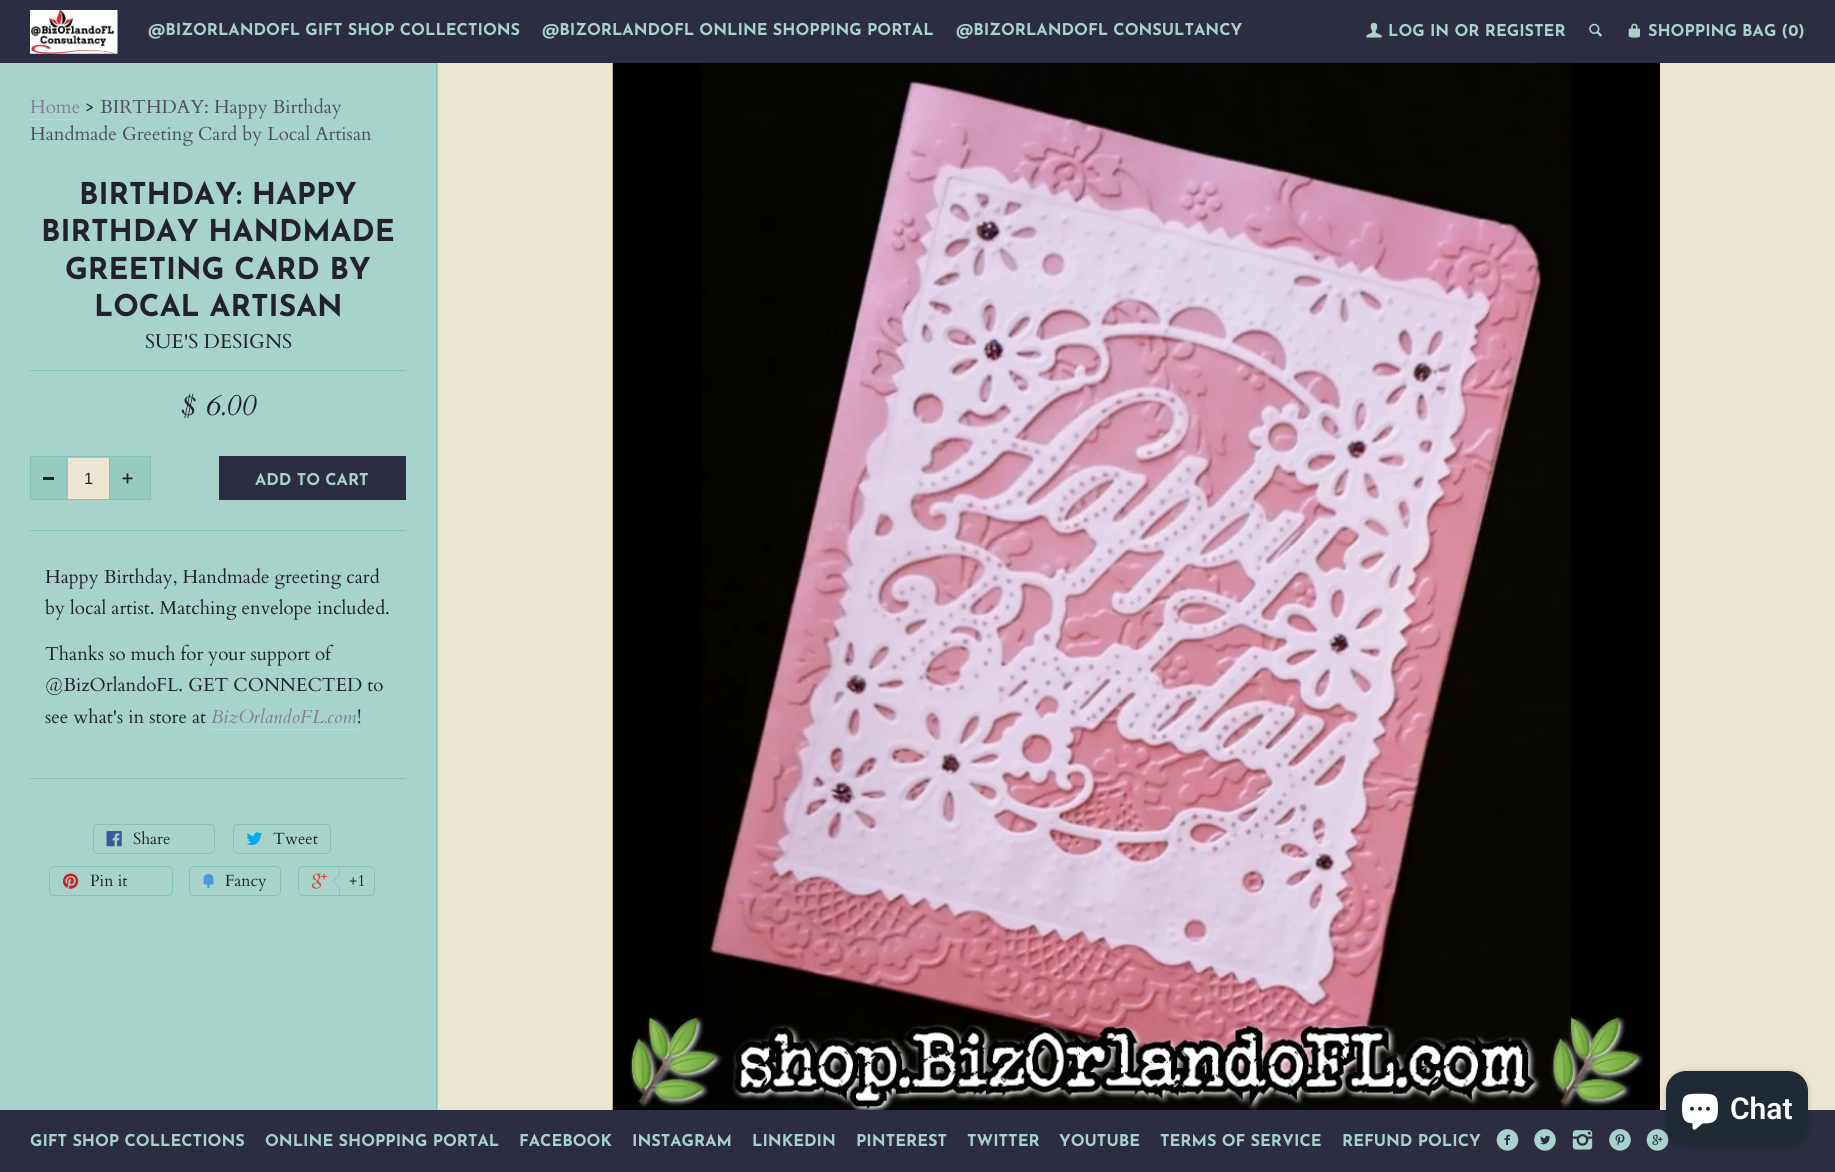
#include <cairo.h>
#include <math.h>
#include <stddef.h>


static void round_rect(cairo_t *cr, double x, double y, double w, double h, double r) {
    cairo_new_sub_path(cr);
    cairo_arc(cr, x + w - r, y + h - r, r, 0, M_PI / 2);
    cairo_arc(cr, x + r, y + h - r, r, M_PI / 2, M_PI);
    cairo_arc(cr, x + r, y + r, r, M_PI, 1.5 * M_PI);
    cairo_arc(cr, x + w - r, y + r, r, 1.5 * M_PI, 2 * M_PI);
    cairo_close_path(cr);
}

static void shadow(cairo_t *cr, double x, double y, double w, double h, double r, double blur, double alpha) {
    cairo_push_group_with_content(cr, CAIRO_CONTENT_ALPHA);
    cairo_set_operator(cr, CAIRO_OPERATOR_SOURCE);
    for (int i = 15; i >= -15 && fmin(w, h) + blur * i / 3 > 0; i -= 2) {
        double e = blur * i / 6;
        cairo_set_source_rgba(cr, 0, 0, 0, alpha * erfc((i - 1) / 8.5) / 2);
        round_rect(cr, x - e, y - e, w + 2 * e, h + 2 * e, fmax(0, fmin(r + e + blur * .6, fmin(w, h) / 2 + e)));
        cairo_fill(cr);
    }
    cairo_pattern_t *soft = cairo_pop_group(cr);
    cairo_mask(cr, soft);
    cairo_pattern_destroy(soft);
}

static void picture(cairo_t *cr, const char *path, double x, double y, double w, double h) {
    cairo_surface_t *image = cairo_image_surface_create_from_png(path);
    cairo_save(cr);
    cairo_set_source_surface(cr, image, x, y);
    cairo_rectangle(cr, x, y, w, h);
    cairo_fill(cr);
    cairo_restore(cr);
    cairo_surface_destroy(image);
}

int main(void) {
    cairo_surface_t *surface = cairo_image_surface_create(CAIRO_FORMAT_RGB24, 1835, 1172);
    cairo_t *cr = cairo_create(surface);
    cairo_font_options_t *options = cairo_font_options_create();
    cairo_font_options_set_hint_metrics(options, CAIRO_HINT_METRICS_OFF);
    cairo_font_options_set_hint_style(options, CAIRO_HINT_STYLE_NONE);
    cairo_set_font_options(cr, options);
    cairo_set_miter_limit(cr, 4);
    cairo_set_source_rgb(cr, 0.922, 0.898, 0.82);
    cairo_paint(cr);
    cairo_set_source_rgb(cr, 0.173, 0.173, 0.259);
    cairo_rectangle(cr, 0, 0, 1835, 63);
    cairo_fill(cr);
    picture(cr, "img1.png", 30, 10, 88, 44);
    cairo_select_font_face(cr, "Josefin Sans", CAIRO_FONT_SLANT_NORMAL, CAIRO_FONT_WEIGHT_BOLD);
    cairo_set_font_size(cr, 16.25);
    cairo_set_source_rgb(cr, 0.655, 0.827, 0.792);
    cairo_move_to(cr, 148, 35);
    cairo_show_text(cr, "@BIZORLANDOFL GIFT SHOP COLLECTIONS");
    cairo_move_to(cr, 542, 35);
    cairo_show_text(cr, "@BIZORLANDOFL ONLINE SHOPPING PORTAL");
    cairo_move_to(cr, 956, 35);
    cairo_show_text(cr, "@BIZORLANDOFL CONSULTANCY");
    picture(cr, "img2.png", 1366, 22, 16, 16);
    cairo_move_to(cr, 1388, 36);
    cairo_show_text(cr, "LOG IN OR REGISTER");
    picture(cr, "img3.png", 1589, 23, 13, 14);
    picture(cr, "img4.png", 1628, 23, 13, 15);
    cairo_move_to(cr, 1648, 36);
    cairo_show_text(cr, "SHOPPING BAG (0");
    cairo_move_to(cr, 1798, 36);
    cairo_show_text(cr, ")");
    cairo_rectangle(cr, 0, 63, 438, 1047);
    cairo_fill(cr);
    cairo_set_source_rgb(cr, 0.522, 0.761, 0.714);
    cairo_rectangle(cr, 436, 63, 1, 1047);
    cairo_fill(cr);
    cairo_select_font_face(cr, "Cardo", CAIRO_FONT_SLANT_NORMAL, CAIRO_FONT_WEIGHT_NORMAL);
    cairo_set_font_size(cr, 18.75);
    cairo_set_source_rgb(cr, 0.494, 0.494, 0.616);
    cairo_move_to(cr, 30, 113);
    cairo_show_text(cr, "Home");
    cairo_set_source_rgb(cr, 0.863, 0.82, 0.678);
    cairo_rectangle(cr, 30, 119, 50, 1);
    cairo_fill(cr);
    cairo_set_source_rgb(cr, 0.133, 0.133, 0.176);
    cairo_move_to(cr, 85, 113);
    cairo_show_text(cr, ">");
    cairo_set_source_rgb(cr, 0.306, 0.306, 0.404);
    cairo_move_to(cr, 100, 113);
    cairo_show_text(cr, "BIRTHDAY: Happy Birthday");
    cairo_move_to(cr, 30, 140);
    cairo_show_text(cr, "Handmade Greeting Card by Local Artisan");
    cairo_select_font_face(cr, "Josefin Sans", CAIRO_FONT_SLANT_NORMAL, CAIRO_FONT_WEIGHT_BOLD);
    cairo_set_font_size(cr, 30);
    cairo_set_source_rgb(cr, 0.133, 0.133, 0.176);
    cairo_move_to(cr, 79, 204);
    cairo_show_text(cr, "BIRTHDAY: HAPPY");
    cairo_move_to(cr, 41, 241);
    cairo_show_text(cr, "BIRTHDAY HANDMADE");
    cairo_move_to(cr, 65, 279);
    cairo_show_text(cr, "GREETING CARD BY");
    cairo_move_to(cr, 94, 316);
    cairo_show_text(cr, "LOCAL ARTISAN");
    cairo_set_source_rgb(cr, 0.522, 0.761, 0.714);
    cairo_rectangle(cr, 30, 370, 376, 1);
    cairo_fill(cr);
    cairo_select_font_face(cr, "Cardo", CAIRO_FONT_SLANT_NORMAL, CAIRO_FONT_WEIGHT_NORMAL);
    cairo_set_font_size(cr, 20);
    cairo_set_source_rgb(cr, 0.133, 0.133, 0.176);
    cairo_move_to(cr, 145, 348);
    cairo_show_text(cr, "SUE'S DESIGNS");
    cairo_select_font_face(cr, "Cardo", CAIRO_FONT_SLANT_ITALIC, CAIRO_FONT_WEIGHT_NORMAL);
    cairo_set_font_size(cr, 30);
    cairo_move_to(cr, 181, 415);
    cairo_show_text(cr, "$ 6.00");
    cairo_set_source_rgb(cr, 0.588, 0.796, 0.753);
    cairo_rectangle(cr, 30.5, 456.5, 120, 43);
    cairo_fill_preserve(cr);
    cairo_set_source_rgb(cr, 0.522, 0.761, 0.714);
    cairo_set_line_width(cr, 1);
    cairo_stroke(cr);
    cairo_set_source_rgb(cr, 0.133, 0.133, 0.176);
    cairo_rectangle(cr, 43, 477, 11, 3);
    cairo_fill(cr);
    cairo_set_source_rgb(cr, 0.922, 0.898, 0.82);
    cairo_rectangle(cr, 68, 458, 41, 41);
    cairo_fill(cr);
    cairo_set_source_rgb(cr, 0.522, 0.761, 0.714);
    cairo_rectangle(cr, 109, 458, 1, 41);
    cairo_fill(cr);
    cairo_rectangle(cr, 66, 458, 1, 41);
    cairo_fill(cr);
    cairo_select_font_face(cr, "Liberation Sans", CAIRO_FONT_SLANT_NORMAL, CAIRO_FONT_WEIGHT_NORMAL);
    cairo_set_font_size(cr, 16.25);
    cairo_set_source_rgb(cr, 0.133, 0.133, 0.176);
    cairo_move_to(cr, 84, 484);
    cairo_show_text(cr, "1");
    picture(cr, "img5.png", 122, 473, 11, 11);
    cairo_set_source_rgb(cr, 0.173, 0.173, 0.259);
    cairo_rectangle(cr, 219, 456, 187, 44);
    cairo_fill(cr);
    cairo_select_font_face(cr, "Josefin Sans", CAIRO_FONT_SLANT_NORMAL, CAIRO_FONT_WEIGHT_BOLD);
    cairo_set_source_rgb(cr, 0.655, 0.827, 0.792);
    cairo_move_to(cr, 255, 485);
    cairo_show_text(cr, "ADD TO CART");
    cairo_set_source_rgb(cr, 0.522, 0.761, 0.714);
    cairo_rectangle(cr, 30, 530, 376, 1);
    cairo_fill(cr);
    cairo_rectangle(cr, 30, 778, 376, 1);
    cairo_fill(cr);
    cairo_select_font_face(cr, "Cardo", CAIRO_FONT_SLANT_NORMAL, CAIRO_FONT_WEIGHT_NORMAL);
    cairo_set_font_size(cr, 18.75);
    cairo_set_source_rgb(cr, 0.133, 0.133, 0.176);
    cairo_move_to(cr, 45, 583);
    cairo_show_text(cr, "Happy Birthday, Handmade greeting card");
    cairo_move_to(cr, 45, 614);
    cairo_show_text(cr, "by local artist. Matching envelope included.");
    cairo_move_to(cr, 45, 660);
    cairo_show_text(cr, "Thanks so much for your support of");
    cairo_move_to(cr, 45, 691);
    cairo_show_text(cr, "@BizOrlandoFL. GET CONNECTED to");
    cairo_move_to(cr, 45, 723);
    cairo_show_text(cr, "see what's in store at");
    cairo_select_font_face(cr, "Cardo", CAIRO_FONT_SLANT_ITALIC, CAIRO_FONT_WEIGHT_NORMAL);
    cairo_set_source_rgb(cr, 0.494, 0.494, 0.616);
    cairo_move_to(cr, 211, 723);
    cairo_show_text(cr, "BizOrlandoFL.com");
    cairo_set_source_rgb(cr, 0.863, 0.82, 0.678);
    cairo_rectangle(cr, 211, 729, 145, 1);
    cairo_fill(cr);
    cairo_select_font_face(cr, "Cardo", CAIRO_FONT_SLANT_NORMAL, CAIRO_FONT_WEIGHT_NORMAL);
    cairo_set_source_rgb(cr, 0.133, 0.133, 0.176);
    cairo_move_to(cr, 357, 723);
    cairo_show_text(cr, "!");
    round_rect(cr, 93.5, 824.5, 121, 29, 4.5);
    cairo_set_source_rgb(cr, 0.522, 0.761, 0.714);
    cairo_stroke(cr);
    picture(cr, "img6.png", 106, 831, 16, 16);
    cairo_set_font_size(cr, 16.25);
    cairo_set_source_rgb(cr, 0.133, 0.133, 0.176);
    cairo_move_to(cr, 133, 844);
    cairo_show_text(cr, "Share");
    round_rect(cr, 233.5, 824.5, 97, 29, 4.5);
    cairo_set_source_rgb(cr, 0.522, 0.761, 0.714);
    cairo_stroke(cr);
    picture(cr, "img7.png", 246, 832, 16, 13);
    cairo_set_source_rgb(cr, 0.133, 0.133, 0.176);
    cairo_move_to(cr, 273, 844);
    cairo_show_text(cr, "Tweet");
    round_rect(cr, 49.5, 866.5, 123, 29, 4.5);
    cairo_set_source_rgb(cr, 0.522, 0.761, 0.714);
    cairo_stroke(cr);
    picture(cr, "img8.png", 63, 873, 16, 16);
    cairo_set_source_rgb(cr, 0.133, 0.133, 0.176);
    cairo_move_to(cr, 90, 886);
    cairo_show_text(cr, "Pin it");
    round_rect(cr, 189.5, 866.5, 91, 29, 4.5);
    cairo_set_source_rgb(cr, 0.522, 0.761, 0.714);
    cairo_stroke(cr);
    picture(cr, "img9.png", 203, 874, 11, 15);
    cairo_set_source_rgb(cr, 0.133, 0.133, 0.176);
    cairo_move_to(cr, 225, 886);
    cairo_show_text(cr, "Fancy");
    round_rect(cr, 298.5, 866.5, 76, 29, 4.5);
    cairo_set_source_rgb(cr, 0.522, 0.761, 0.714);
    cairo_stroke(cr);
    picture(cr, "img10.png", 311, 873, 16, 16);
    cairo_rectangle(cr, 339, 868, 1, 27);
    cairo_fill(cr);
    cairo_new_path(cr);
    cairo_move_to(cr, 340, 874);
    cairo_line_to(cr, 340, 889);
    cairo_line_to(cr, 332.5, 881);
    cairo_close_path(cr);
    cairo_fill(cr);
    cairo_set_source_rgb(cr, 0.655, 0.827, 0.792);
    cairo_new_path(cr);
    cairo_move_to(cr, 341, 874);
    cairo_line_to(cr, 341, 889);
    cairo_line_to(cr, 334, 881);
    cairo_close_path(cr);
    cairo_fill(cr);
    cairo_set_source_rgb(cr, 0.133, 0.133, 0.176);
    cairo_move_to(cr, 349, 886);
    cairo_show_text(cr, "+1");
    picture(cr, "img11.png", 612, 63, 1048, 1047);
    cairo_set_source_rgb(cr, 0.173, 0.173, 0.259);
    cairo_rectangle(cr, 0, 1110, 1835, 62);
    cairo_fill(cr);
    picture(cr, "img17.png", 1646, 1129, 23, 22);
    cairo_set_source_rgb(cr, 0, 0, 0);
    shadow(cr, 1666, 1071, 142, 75, 20, 3, 0.15);
    cairo_set_source_rgb(cr, 0.125, 0.165, 0.212);
    round_rect(cr, 1666, 1071, 142, 75, 20);
    cairo_fill(cr);
    picture(cr, "img12.png", 1682, 1093, 36, 37);
    cairo_select_font_face(cr, "Roboto SemiBold", CAIRO_FONT_SLANT_NORMAL, CAIRO_FONT_WEIGHT_NORMAL);
    cairo_set_font_size(cr, 30);
    cairo_set_source_rgb(cr, 1, 1, 1);
    cairo_move_to(cr, 1730, 1119);
    cairo_show_text(cr, "Chat");
    cairo_select_font_face(cr, "Josefin Sans", CAIRO_FONT_SLANT_NORMAL, CAIRO_FONT_WEIGHT_BOLD);
    cairo_set_font_size(cr, 16.25);
    cairo_set_source_rgb(cr, 0.655, 0.827, 0.792);
    cairo_move_to(cr, 30, 1146);
    cairo_show_text(cr, "GIFT SHOP COLLECTIONS");
    cairo_move_to(cr, 265, 1146);
    cairo_show_text(cr, "ONLINE SHOPPING PORTAL");
    cairo_move_to(cr, 519, 1146);
    cairo_show_text(cr, "FACEBOOK");
    cairo_move_to(cr, 632, 1146);
    cairo_show_text(cr, "INSTAGRAM");
    cairo_move_to(cr, 752, 1146);
    cairo_show_text(cr, "LINKEDIN");
    cairo_move_to(cr, 856, 1146);
    cairo_show_text(cr, "PINTEREST");
    cairo_move_to(cr, 967, 1146);
    cairo_show_text(cr, "TWITTER");
    cairo_move_to(cr, 1059, 1146);
    cairo_show_text(cr, "YOUTUBE");
    cairo_move_to(cr, 1160, 1146);
    cairo_show_text(cr, "TERMS OF SERVICE");
    cairo_move_to(cr, 1342, 1146);
    cairo_show_text(cr, "REFUND POLICY");
    picture(cr, "img13.png", 1496, 1129, 23, 22);
    picture(cr, "img14.png", 1534, 1129, 22, 22);
    picture(cr, "img15.png", 1572, 1130, 21, 20);
    picture(cr, "img16.png", 1609, 1129, 22, 22);
    cairo_surface_write_to_png(surface, "page.png");
    cairo_font_options_destroy(options);
    cairo_destroy(cr);
    cairo_surface_destroy(surface);
    return 0;
}
